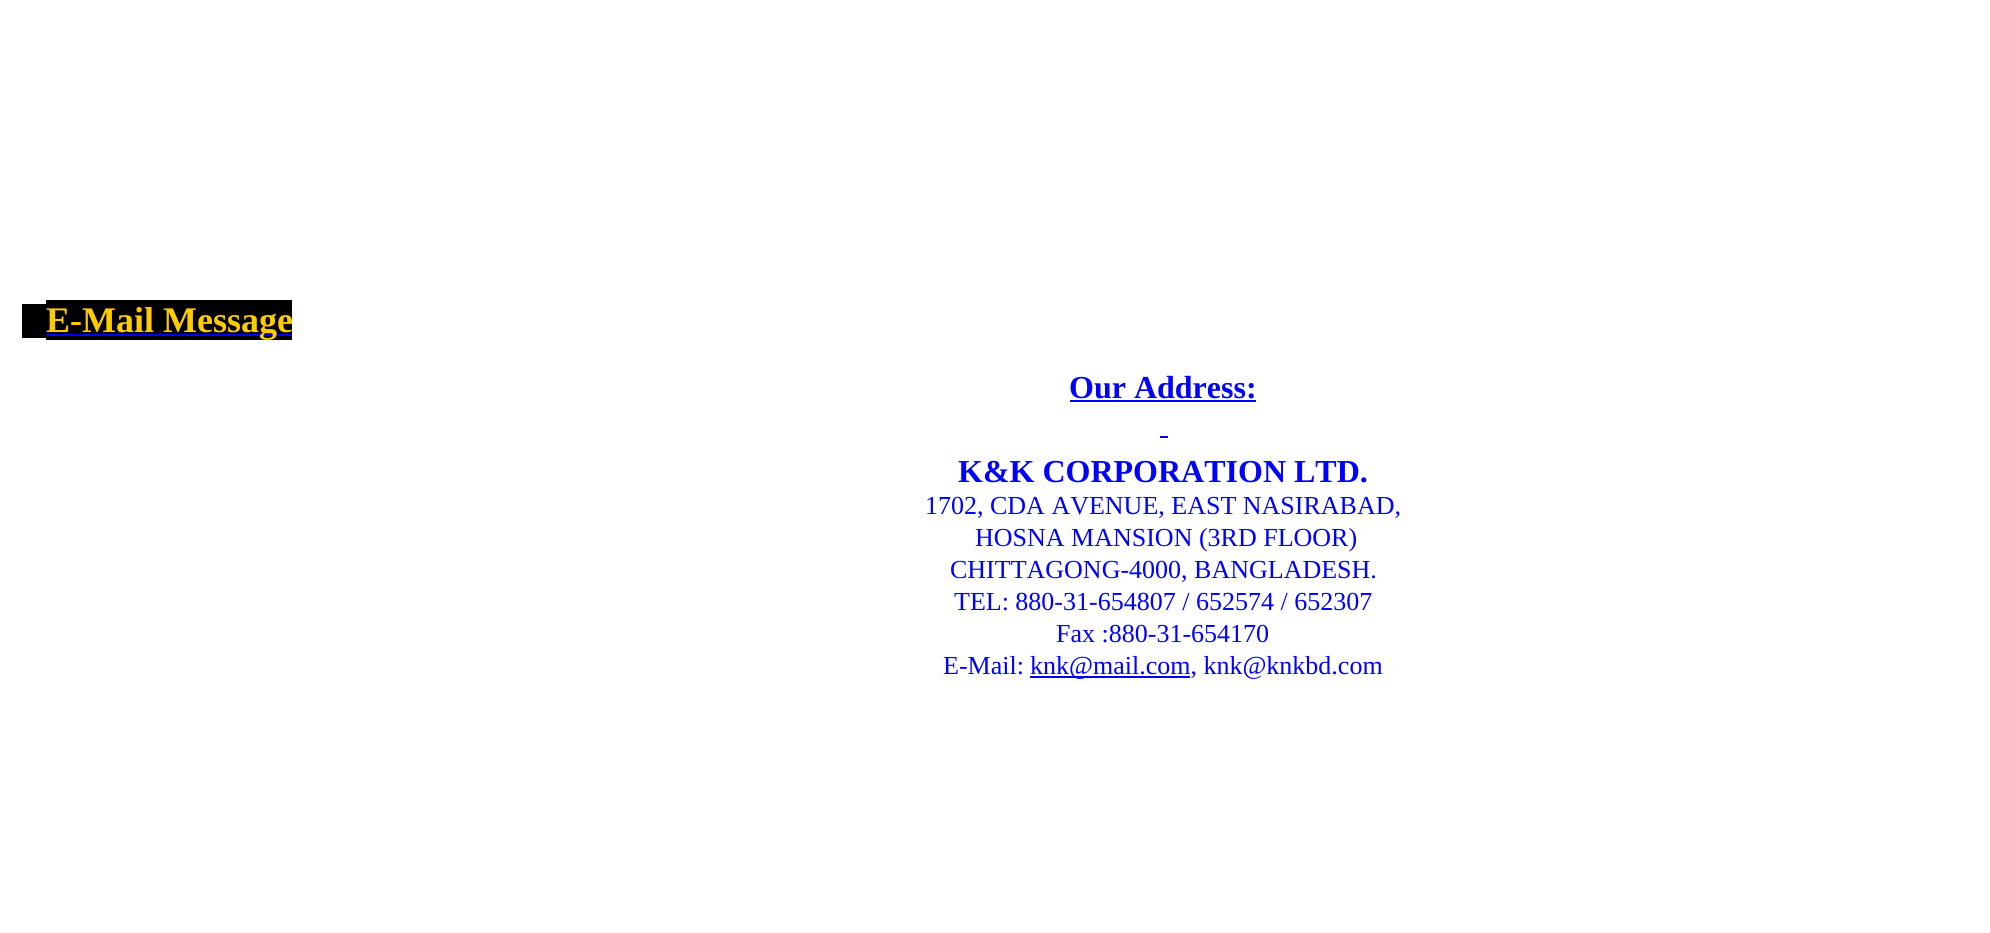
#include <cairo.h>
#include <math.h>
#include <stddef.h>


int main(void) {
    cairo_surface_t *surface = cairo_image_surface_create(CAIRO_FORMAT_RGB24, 1990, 933);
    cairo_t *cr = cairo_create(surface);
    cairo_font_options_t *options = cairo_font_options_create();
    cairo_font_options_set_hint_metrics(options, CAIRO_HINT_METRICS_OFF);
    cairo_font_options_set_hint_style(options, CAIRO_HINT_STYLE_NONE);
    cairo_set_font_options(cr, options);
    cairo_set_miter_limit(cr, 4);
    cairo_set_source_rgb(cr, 1, 1, 1);
    cairo_paint(cr);
    cairo_set_source_rgb(cr, 0, 0, 0);
    cairo_rectangle(cr, 46, 300, 246, 40);
    cairo_fill(cr);
    cairo_set_source_rgb(cr, 0, 0, 0.933);
    cairo_rectangle(cr, 46, 334, 246, 2);
    cairo_fill(cr);
    cairo_select_font_face(cr, "Liberation Serif", CAIRO_FONT_SLANT_NORMAL, CAIRO_FONT_WEIGHT_BOLD);
    cairo_set_font_size(cr, 36);
    cairo_set_source_rgb(cr, 1, 0.8, 0);
    cairo_move_to(cr, 46, 332);
    cairo_show_text(cr, "E-Mail Message");
    cairo_set_source_rgb(cr, 0, 0, 0);
    cairo_rectangle(cr, 22, 304, 24, 34);
    cairo_fill(cr);
    cairo_set_font_size(cr, 32);
    cairo_set_source_rgb(cr, 0, 0, 1);
    cairo_move_to(cr, 1069, 398);
    cairo_show_text(cr, "Our Address:");
    cairo_rectangle(cr, 1070, 400, 186, 2);
    cairo_fill(cr);
    cairo_rectangle(cr, 1160, 436, 8, 2);
    cairo_fill(cr);
    cairo_move_to(cr, 958, 482);
    cairo_show_text(cr, "K&K CORPORATION LTD.");
    cairo_select_font_face(cr, "Liberation Serif", CAIRO_FONT_SLANT_NORMAL, CAIRO_FONT_WEIGHT_NORMAL);
    cairo_set_font_size(cr, 26);
    cairo_move_to(cr, 925, 514);
    cairo_show_text(cr, "1702, CDA AVENUE, EAST NASIRABAD,");
    cairo_move_to(cr, 975, 546);
    cairo_show_text(cr, "HOSNA MANSION (3RD FLOOR)");
    cairo_move_to(cr, 950, 578);
    cairo_show_text(cr, "CHITTAGONG-4000, BANGLADESH.");
    cairo_move_to(cr, 954, 610);
    cairo_show_text(cr, "TEL: 880-31-654807 / 652574 / 652307");
    cairo_move_to(cr, 1056, 642);
    cairo_show_text(cr, "Fax :880-31-654170");
    cairo_move_to(cr, 943, 674);
    cairo_show_text(cr, "E-Mail:");
    cairo_set_source_rgb(cr, 0, 0, 0.933);
    cairo_rectangle(cr, 1030, 676, 160, 2);
    cairo_fill(cr);
    cairo_set_source_rgb(cr, 0, 0, 1);
    cairo_move_to(cr, 1030, 674);
    cairo_show_text(cr, "knk@mail.com, knk@knkbd.com");
    cairo_surface_write_to_png(surface, "page.png");
    cairo_font_options_destroy(options);
    cairo_destroy(cr);
    cairo_surface_destroy(surface);
    return 0;
}
